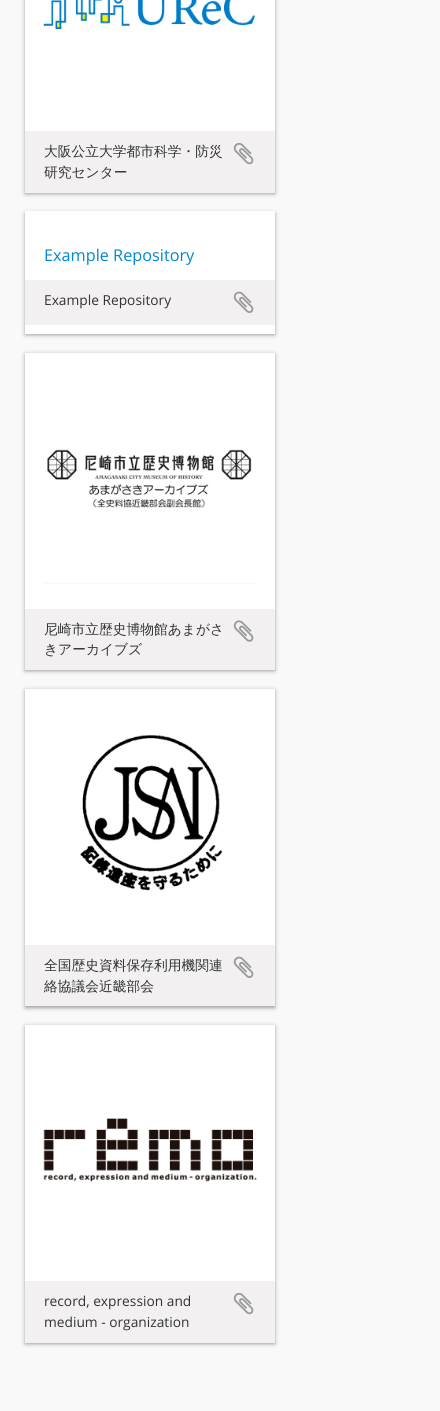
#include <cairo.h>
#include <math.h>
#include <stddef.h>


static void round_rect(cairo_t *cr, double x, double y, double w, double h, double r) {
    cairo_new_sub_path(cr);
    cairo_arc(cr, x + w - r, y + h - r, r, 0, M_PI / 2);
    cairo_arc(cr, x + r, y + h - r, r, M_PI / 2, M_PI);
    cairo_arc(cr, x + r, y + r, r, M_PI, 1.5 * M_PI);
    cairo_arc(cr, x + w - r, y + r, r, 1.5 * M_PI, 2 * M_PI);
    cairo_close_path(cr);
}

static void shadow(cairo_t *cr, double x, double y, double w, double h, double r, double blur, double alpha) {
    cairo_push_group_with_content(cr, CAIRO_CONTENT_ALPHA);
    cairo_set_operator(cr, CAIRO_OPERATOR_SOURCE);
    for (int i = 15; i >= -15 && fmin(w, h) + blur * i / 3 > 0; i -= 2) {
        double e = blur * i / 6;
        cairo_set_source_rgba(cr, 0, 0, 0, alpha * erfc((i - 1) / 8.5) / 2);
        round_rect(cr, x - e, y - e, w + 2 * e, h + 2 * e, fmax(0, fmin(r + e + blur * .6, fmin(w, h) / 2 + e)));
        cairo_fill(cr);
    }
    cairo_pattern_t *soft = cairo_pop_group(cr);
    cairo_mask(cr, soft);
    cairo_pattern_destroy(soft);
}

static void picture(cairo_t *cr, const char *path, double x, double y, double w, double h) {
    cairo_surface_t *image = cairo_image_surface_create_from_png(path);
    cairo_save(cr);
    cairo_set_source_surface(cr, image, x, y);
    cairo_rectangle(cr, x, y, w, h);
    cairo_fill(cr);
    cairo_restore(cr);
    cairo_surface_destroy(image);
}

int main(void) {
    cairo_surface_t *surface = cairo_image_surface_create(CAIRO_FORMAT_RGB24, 440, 1411);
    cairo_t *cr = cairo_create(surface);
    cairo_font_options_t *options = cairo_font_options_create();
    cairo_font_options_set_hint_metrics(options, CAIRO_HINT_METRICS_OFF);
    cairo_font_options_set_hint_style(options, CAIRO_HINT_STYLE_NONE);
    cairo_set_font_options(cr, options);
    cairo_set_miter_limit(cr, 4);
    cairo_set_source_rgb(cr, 0.973, 0.973, 0.973);
    cairo_paint(cr);
    cairo_set_source_rgb(cr, 0.098, 0.098, 0.098);
    shadow(cr, 25, -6, 250, 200, 0, 2, 0.4);
    cairo_set_source_rgb(cr, 1, 1, 1);
    cairo_rectangle(cr, 25, 0, 250, 131);
    cairo_fill(cr);
    picture(cr, "img1.png", 43, 0, 213, 106);
    cairo_set_source_rgb(cr, 0.949, 0.941, 0.941);
    cairo_rectangle(cr, 25, 131, 250, 62);
    cairo_fill(cr);
    cairo_select_font_face(cr, "WenQuanYi Zen Hei Medium", CAIRO_FONT_SLANT_NORMAL, CAIRO_FONT_WEIGHT_NORMAL);
    cairo_set_font_size(cr, 13.75);
    cairo_set_source_rgb(cr, 0.2, 0.2, 0.2);
    cairo_move_to(cr, 44, 156);
    cairo_show_text(cr, "大阪公立大学都市科学・防災");
    picture(cr, "img2.png", 233, 142, 21, 23);
    cairo_move_to(cr, 44, 177);
    cairo_show_text(cr, "研究センター");
    cairo_set_source_rgb(cr, 0.098, 0.098, 0.098);
    shadow(cr, 25, 213, 250, 122, 0, 2, 0.4);
    cairo_set_source_rgb(cr, 1, 1, 1);
    cairo_rectangle(cr, 25, 211, 250, 123);
    cairo_fill(cr);
    cairo_select_font_face(cr, "Open Sans", CAIRO_FONT_SLANT_NORMAL, CAIRO_FONT_WEIGHT_NORMAL);
    cairo_set_font_size(cr, 16.25);
    cairo_set_source_rgb(cr, 0, 0.533, 0.8);
    cairo_move_to(cr, 44, 261);
    cairo_show_text(cr, "Example Repository");
    cairo_set_source_rgb(cr, 0.949, 0.941, 0.941);
    cairo_rectangle(cr, 25, 280, 250, 45);
    cairo_fill(cr);
    cairo_set_font_size(cr, 13.75);
    cairo_set_source_rgb(cr, 0.2, 0.2, 0.2);
    cairo_move_to(cr, 44, 305);
    cairo_show_text(cr, "Example Repository");
    picture(cr, "img3.png", 233, 291, 21, 22);
    cairo_set_source_rgb(cr, 0.098, 0.098, 0.098);
    shadow(cr, 25, 354, 250, 317, 0, 2, 0.4);
    cairo_set_source_rgb(cr, 1, 1, 1);
    cairo_rectangle(cr, 25, 353, 250, 256);
    cairo_fill(cr);
    cairo_set_source_rgb(cr, 0.949, 0.941, 0.941);
    cairo_rectangle(cr, 44, 583, 212, 1);
    cairo_fill(cr);
    picture(cr, "img4.png", 44, 371, 212, 213);
    cairo_rectangle(cr, 25, 609, 250, 61);
    cairo_fill(cr);
    cairo_select_font_face(cr, "WenQuanYi Zen Hei Medium", CAIRO_FONT_SLANT_NORMAL, CAIRO_FONT_WEIGHT_NORMAL);
    cairo_set_source_rgb(cr, 0.2, 0.2, 0.2);
    cairo_move_to(cr, 44, 634);
    cairo_show_text(cr, "尼崎市立歴史博物館あまがさ");
    picture(cr, "img5.png", 233, 620, 21, 22);
    cairo_move_to(cr, 44, 654);
    cairo_show_text(cr, "きアーカイブズ");
    cairo_set_source_rgb(cr, 0.098, 0.098, 0.098);
    shadow(cr, 25, 690, 250, 318, 0, 2, 0.4);
    cairo_set_source_rgb(cr, 1, 1, 1);
    cairo_rectangle(cr, 25, 689, 250, 256);
    cairo_fill(cr);
    picture(cr, "img6.png", 44, 708, 212, 212);
    cairo_set_source_rgb(cr, 0.949, 0.941, 0.941);
    cairo_rectangle(cr, 25, 945, 250, 61);
    cairo_fill(cr);
    cairo_set_source_rgb(cr, 0.2, 0.2, 0.2);
    cairo_move_to(cr, 44, 970);
    cairo_show_text(cr, "全国歴史資料保存利用機関連");
    picture(cr, "img3.png", 233, 956, 21, 22);
    cairo_move_to(cr, 44, 991);
    cairo_show_text(cr, "絡協議会近畿部会");
    cairo_set_source_rgb(cr, 0.098, 0.098, 0.098);
    shadow(cr, 25, 1026, 250, 318, 0, 2, 0.4);
    cairo_set_source_rgb(cr, 1, 1, 1);
    cairo_rectangle(cr, 25, 1025, 250, 256);
    cairo_fill(cr);
    picture(cr, "img7.png", 43, 1044, 214, 212);
    cairo_set_source_rgb(cr, 0.949, 0.941, 0.941);
    cairo_rectangle(cr, 25, 1281, 250, 62);
    cairo_fill(cr);
    cairo_select_font_face(cr, "Open Sans", CAIRO_FONT_SLANT_NORMAL, CAIRO_FONT_WEIGHT_NORMAL);
    cairo_set_source_rgb(cr, 0.2, 0.2, 0.2);
    cairo_move_to(cr, 44, 1306);
    cairo_show_text(cr, "record, expression and");
    picture(cr, "img2.png", 233, 1292, 21, 23);
    cairo_move_to(cr, 44, 1327);
    cairo_show_text(cr, "medium - organization");
    cairo_surface_write_to_png(surface, "page.png");
    cairo_font_options_destroy(options);
    cairo_destroy(cr);
    cairo_surface_destroy(surface);
    return 0;
}
